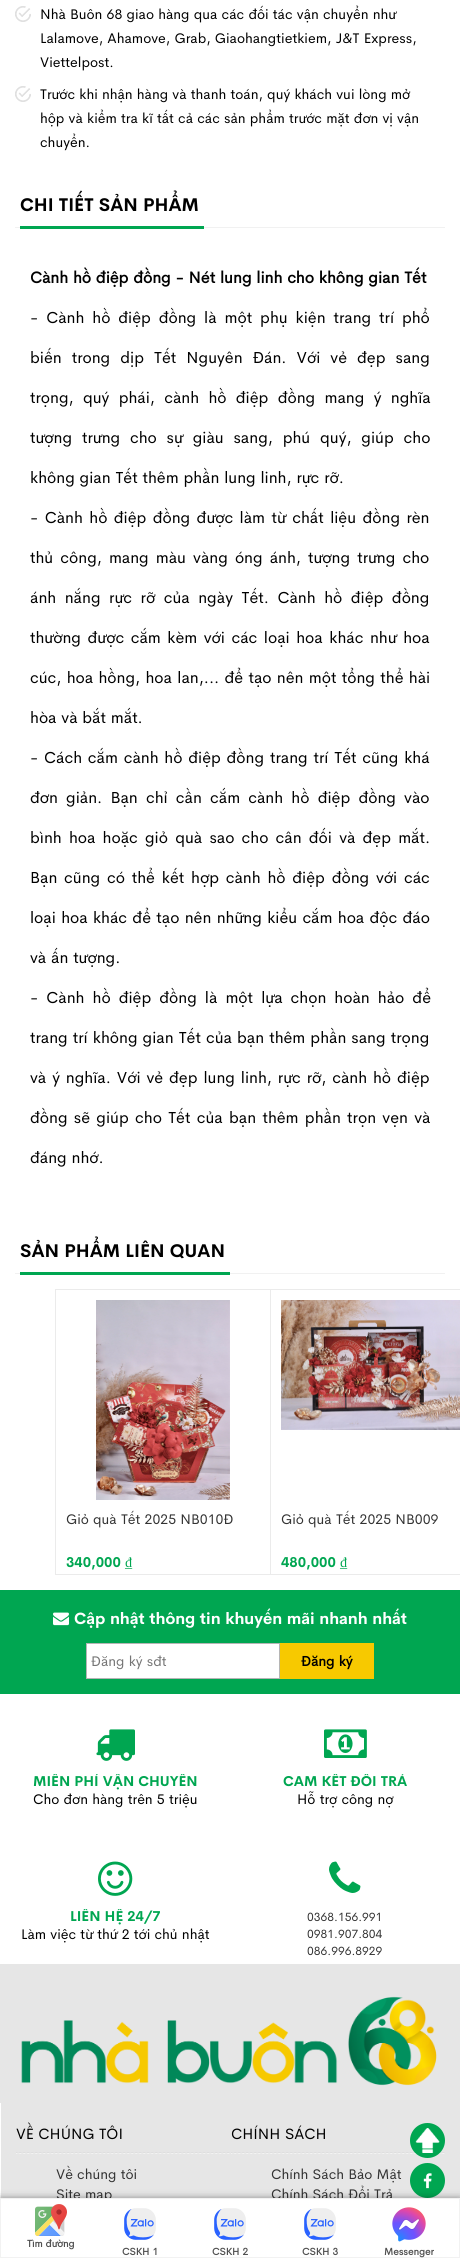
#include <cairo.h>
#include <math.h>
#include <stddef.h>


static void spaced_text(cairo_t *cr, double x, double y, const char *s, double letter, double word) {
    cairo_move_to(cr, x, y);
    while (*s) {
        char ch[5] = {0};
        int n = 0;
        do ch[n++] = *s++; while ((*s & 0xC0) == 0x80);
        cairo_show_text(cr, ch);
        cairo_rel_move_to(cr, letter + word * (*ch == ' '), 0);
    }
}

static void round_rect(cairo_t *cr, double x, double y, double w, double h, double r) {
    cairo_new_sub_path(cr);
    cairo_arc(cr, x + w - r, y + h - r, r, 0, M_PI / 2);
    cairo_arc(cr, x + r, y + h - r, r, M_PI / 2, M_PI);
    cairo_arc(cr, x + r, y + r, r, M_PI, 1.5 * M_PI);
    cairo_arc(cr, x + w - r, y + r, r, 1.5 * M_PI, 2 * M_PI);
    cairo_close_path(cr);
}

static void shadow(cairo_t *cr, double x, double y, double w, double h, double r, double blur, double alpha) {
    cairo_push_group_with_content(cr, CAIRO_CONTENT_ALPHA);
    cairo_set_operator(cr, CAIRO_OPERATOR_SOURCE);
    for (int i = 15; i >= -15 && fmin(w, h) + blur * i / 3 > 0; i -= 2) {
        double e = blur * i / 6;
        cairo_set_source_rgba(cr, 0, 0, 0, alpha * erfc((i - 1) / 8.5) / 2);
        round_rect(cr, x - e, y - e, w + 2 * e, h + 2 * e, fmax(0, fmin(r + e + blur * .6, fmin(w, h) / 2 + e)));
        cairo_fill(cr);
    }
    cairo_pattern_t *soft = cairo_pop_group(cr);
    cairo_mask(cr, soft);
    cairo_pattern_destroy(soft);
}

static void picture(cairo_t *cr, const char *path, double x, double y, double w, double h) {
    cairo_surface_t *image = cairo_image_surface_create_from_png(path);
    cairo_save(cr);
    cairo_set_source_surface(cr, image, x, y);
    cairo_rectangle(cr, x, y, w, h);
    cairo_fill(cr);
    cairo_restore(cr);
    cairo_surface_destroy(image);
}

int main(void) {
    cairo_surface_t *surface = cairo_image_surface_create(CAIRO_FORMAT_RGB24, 460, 2258);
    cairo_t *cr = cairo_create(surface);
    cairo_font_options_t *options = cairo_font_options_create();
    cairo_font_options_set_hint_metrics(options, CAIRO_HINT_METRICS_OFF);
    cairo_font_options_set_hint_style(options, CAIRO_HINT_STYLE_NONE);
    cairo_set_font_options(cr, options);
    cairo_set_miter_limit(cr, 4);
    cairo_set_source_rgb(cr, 1, 1, 1);
    cairo_paint(cr);
    picture(cr, "img1.png", 15, 6, 16, 16);
    cairo_select_font_face(cr, "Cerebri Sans", CAIRO_FONT_SLANT_NORMAL, CAIRO_FONT_WEIGHT_NORMAL);
    cairo_set_font_size(cr, 14);
    cairo_set_source_rgb(cr, 0, 0, 0);
    cairo_move_to(cr, 40, 19);
    cairo_show_text(cr, "Nhà Buôn 68 giao hàng qua các đối tác vận chuyển như");
    cairo_move_to(cr, 40, 43);
    cairo_show_text(cr, "Lalamove, Ahamove, Grab, Giaohangtietkiem, J&T Express,");
    cairo_move_to(cr, 40, 67);
    cairo_show_text(cr, "Viettelpost.");
    picture(cr, "img1.png", 15, 86, 16, 16);
    cairo_move_to(cr, 40, 99);
    cairo_show_text(cr, "Trước khi nhận hàng và thanh toán, quý khách vui lòng mở");
    cairo_move_to(cr, 40, 123);
    cairo_show_text(cr, "hộp và kiểm tra kĩ tất cả các sản phẩm trước mặt đơn vị vận");
    cairo_move_to(cr, 40, 147);
    cairo_show_text(cr, "chuyển.");
    cairo_set_source_rgb(cr, 0.945, 0.945, 0.945);
    cairo_rectangle(cr, 15, 227, 430, 1);
    cairo_fill(cr);
    cairo_set_source_rgb(cr, 0, 0.651, 0.318);
    cairo_rectangle(cr, 20, 226, 184, 3);
    cairo_fill(cr);
    cairo_select_font_face(cr, "Cerebri Sans", CAIRO_FONT_SLANT_NORMAL, CAIRO_FONT_WEIGHT_BOLD);
    cairo_set_font_size(cr, 18);
    cairo_set_source_rgb(cr, 0, 0, 0);
    cairo_move_to(cr, 20, 211);
    cairo_show_text(cr, "CHI TIẾT SẢN PHẨM");
    cairo_select_font_face(cr, "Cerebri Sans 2", CAIRO_FONT_SLANT_NORMAL, CAIRO_FONT_WEIGHT_BOLD);
    cairo_set_font_size(cr, 16);
    cairo_move_to(cr, 30, 283);
    cairo_show_text(cr, "Cành hồ điệp đồng - Nét lung linh cho không gian Tết");
    cairo_select_font_face(cr, "Cerebri Sans", CAIRO_FONT_SLANT_NORMAL, CAIRO_FONT_WEIGHT_NORMAL);
    spaced_text(cr, 30, 323, "- Cành hồ điệp đồng là một phụ kiện trang trí phổ", 0, 3.1);
    spaced_text(cr, 30, 363, "biến trong dịp Tết Nguyên Đán. Với vẻ đẹp sang", 0, 5.25);
    spaced_text(cr, 30, 403, "trọng, quý phái, cành hồ điệp đồng mang ý nghĩa", 0, 4.5);
    spaced_text(cr, 30, 443, "tượng trưng cho sự giàu sang, phú quý, giúp cho", 0, 5);
    cairo_move_to(cr, 30, 483);
    cairo_show_text(cr, "không gian Tết thêm phần lung linh, rực rỡ.");
    spaced_text(cr, 30, 523, "- Cành hồ điệp đồng được làm từ chất liệu đồng rèn", 0, 1.6);
    spaced_text(cr, 30, 563, "thủ công, mang màu vàng óng ánh, tượng trưng cho", 0, 2.25);
    spaced_text(cr, 30, 603, "ánh nắng rực rỡ của ngày Tết. Cành hồ điệp đồng", 0, 3.75);
    spaced_text(cr, 30, 643, "thường được cắm kèm với các loại hoa khác như hoa", 0, 1.75);
    spaced_text(cr, 30, 683, "cúc, hoa hồng, hoa lan,... để tạo nên một tổng thể hài", 0, 0.5);
    cairo_move_to(cr, 30, 723);
    cairo_show_text(cr, "hòa và bắt mắt.");
    spaced_text(cr, 30, 763, "- Cách cắm cành hồ điệp đồng trang trí Tết cũng khá", 0, 1);
    spaced_text(cr, 30, 803, "đơn giản. Bạn chỉ cần cắm cành hồ điệp đồng vào", 0, 3.4);
    spaced_text(cr, 30, 843, "bình hoa hoặc giỏ quà sao cho cân đối và đẹp mắt.", 0, 2.4);
    spaced_text(cr, 30, 883, "Bạn cũng có thể kết hợp cành hồ điệp đồng với các", 0, 2);
    spaced_text(cr, 30, 923, "loại hoa khác để tạo nên những kiểu cắm hoa độc đáo", 0, 0.5);
    cairo_move_to(cr, 30, 963);
    cairo_show_text(cr, "và ấn tượng.");
    spaced_text(cr, 30, 1003, "- Cành hồ điệp đồng là một lựa chọn hoàn hảo để", 0, 3.25);
    spaced_text(cr, 30, 1043, "trang trí không gian Tết của bạn thêm phần sang trọng", 0, 0.25);
    spaced_text(cr, 30, 1083, "và ý nghĩa. Với vẻ đẹp lung linh, rực rỡ, cành hồ điệp", 0, 1.1);
    spaced_text(cr, 30, 1123, "đồng sẽ giúp cho Tết của bạn thêm phần trọn vẹn và", 0, 1.5);
    cairo_move_to(cr, 30, 1163);
    cairo_show_text(cr, "đáng nhớ.");
    cairo_set_source_rgb(cr, 0.945, 0.945, 0.945);
    cairo_rectangle(cr, 15, 1273, 430, 1);
    cairo_fill(cr);
    cairo_set_source_rgb(cr, 0, 0.651, 0.318);
    cairo_rectangle(cr, 20, 1272, 210, 3);
    cairo_fill(cr);
    cairo_select_font_face(cr, "Cerebri Sans", CAIRO_FONT_SLANT_NORMAL, CAIRO_FONT_WEIGHT_BOLD);
    cairo_set_font_size(cr, 18);
    cairo_set_source_rgb(cr, 0, 0, 0);
    cairo_move_to(cr, 20, 1257);
    cairo_show_text(cr, "SẢN PHẨM LIÊN QUAN");
    cairo_set_source_rgb(cr, 0.918, 0.918, 0.918);
    cairo_rectangle(cr, 55, 1289, 405, 1);
    cairo_fill(cr);
    cairo_rectangle(cr, 55, 1574, 405, 1);
    cairo_fill(cr);
    cairo_rectangle(cr, 55, 1289, 1, 286);
    cairo_fill(cr);
    picture(cr, "img2.png", 96, 1300, 134, 200);
    cairo_select_font_face(cr, "Cerebri Sans", CAIRO_FONT_SLANT_NORMAL, CAIRO_FONT_WEIGHT_NORMAL);
    cairo_set_font_size(cr, 14);
    cairo_set_source_rgb(cr, 0.2, 0.2, 0.2);
    cairo_move_to(cr, 66, 1524);
    cairo_show_text(cr, "Giỏ quà Tết 2025 NB010Đ");
    cairo_select_font_face(cr, "Cerebri Sans", CAIRO_FONT_SLANT_NORMAL, CAIRO_FONT_WEIGHT_BOLD);
    cairo_set_source_rgb(cr, 0, 0.651, 0.318);
    cairo_move_to(cr, 66, 1567);
    cairo_show_text(cr, "340,000");
    cairo_select_font_face(cr, "Liberation Serif", CAIRO_FONT_SLANT_NORMAL, CAIRO_FONT_WEIGHT_NORMAL);
    cairo_move_to(cr, 125, 1567);
    cairo_show_text(cr, "₫");
    cairo_set_source_rgb(cr, 0.918, 0.918, 0.918);
    cairo_rectangle(cr, 270, 1289, 1, 286);
    cairo_fill(cr);
    picture(cr, "img3.png", 281, 1300, 179, 130);
    cairo_select_font_face(cr, "Cerebri Sans", CAIRO_FONT_SLANT_NORMAL, CAIRO_FONT_WEIGHT_NORMAL);
    cairo_set_source_rgb(cr, 0.2, 0.2, 0.2);
    cairo_move_to(cr, 281, 1524);
    cairo_show_text(cr, "Giỏ quà Tết 2025 NB009");
    cairo_select_font_face(cr, "Cerebri Sans", CAIRO_FONT_SLANT_NORMAL, CAIRO_FONT_WEIGHT_BOLD);
    cairo_set_source_rgb(cr, 0, 0.651, 0.318);
    cairo_move_to(cr, 281, 1567);
    cairo_show_text(cr, "480,000");
    cairo_select_font_face(cr, "Liberation Serif", CAIRO_FONT_SLANT_NORMAL, CAIRO_FONT_WEIGHT_NORMAL);
    cairo_move_to(cr, 340, 1567);
    cairo_show_text(cr, "₫");
    cairo_rectangle(cr, 0, 1590, 460, 104);
    cairo_fill(cr);
    picture(cr, "img4.png", 53, 1612, 16, 14);
    cairo_select_font_face(cr, "Cerebri Sans", CAIRO_FONT_SLANT_NORMAL, CAIRO_FONT_WEIGHT_BOLD);
    cairo_set_font_size(cr, 16);
    cairo_set_source_rgb(cr, 1, 1, 1);
    cairo_move_to(cr, 74, 1624);
    cairo_show_text(cr, "Cập nhật thông tin khuyến mãi nhanh nhất");
    cairo_rectangle(cr, 86.5, 1643.5, 193, 35);
    cairo_fill_preserve(cr);
    cairo_set_source_rgb(cr, 0.71, 0.71, 0.71);
    cairo_set_line_width(cr, 1);
    cairo_stroke(cr);
    cairo_select_font_face(cr, "Cerebri Sans", CAIRO_FONT_SLANT_NORMAL, CAIRO_FONT_WEIGHT_NORMAL);
    cairo_set_font_size(cr, 14);
    cairo_set_source_rgb(cr, 0.459, 0.459, 0.459);
    cairo_move_to(cr, 91, 1666);
    cairo_show_text(cr, "Đăng ký sđt");
    cairo_set_source_rgb(cr, 0.965, 0.788, 0);
    cairo_rectangle(cr, 280, 1643, 94, 36);
    cairo_fill(cr);
    cairo_select_font_face(cr, "Cerebri Sans 2", CAIRO_FONT_SLANT_NORMAL, CAIRO_FONT_WEIGHT_BOLD);
    cairo_set_source_rgb(cr, 0, 0, 0);
    cairo_move_to(cr, 301, 1666);
    cairo_show_text(cr, "Đăng ký");
    picture(cr, "img5.png", 96, 1729, 39, 32);
    cairo_save(cr);
    cairo_rectangle(cr, 5, 1774, 220, 55);
    cairo_clip(cr);
    cairo_select_font_face(cr, "Cerebri Sans", CAIRO_FONT_SLANT_NORMAL, CAIRO_FONT_WEIGHT_BOLD);
    cairo_set_source_rgb(cr, 0, 0.651, 0.318);
    cairo_move_to(cr, 33, 1786);
    cairo_show_text(cr, "MIỄN PHÍ VẬN CHUYỂN");
    cairo_restore(cr);
    cairo_select_font_face(cr, "Cerebri Sans", CAIRO_FONT_SLANT_NORMAL, CAIRO_FONT_WEIGHT_NORMAL);
    cairo_move_to(cr, 33, 1804);
    cairo_show_text(cr, "Cho đơn hàng trên 5 triệu");
    picture(cr, "img6.png", 324, 1729, 43, 29);
    cairo_save(cr);
    cairo_rectangle(cr, 235, 1774, 220, 55);
    cairo_clip(cr);
    cairo_select_font_face(cr, "Cerebri Sans", CAIRO_FONT_SLANT_NORMAL, CAIRO_FONT_WEIGHT_BOLD);
    cairo_set_source_rgb(cr, 0, 0.651, 0.318);
    cairo_move_to(cr, 283, 1786);
    cairo_show_text(cr, "CAM KẾT ĐỔI TRẢ");
    cairo_restore(cr);
    cairo_move_to(cr, 297, 1804);
    cairo_show_text(cr, "Hỗ trợ công nợ");
    picture(cr, "img7.png", 98, 1861, 35, 35);
    cairo_save(cr);
    cairo_rectangle(cr, 5, 1909, 220, 55);
    cairo_clip(cr);
    cairo_select_font_face(cr, "Cerebri Sans", CAIRO_FONT_SLANT_NORMAL, CAIRO_FONT_WEIGHT_BOLD);
    cairo_set_source_rgb(cr, 0, 0.651, 0.318);
    cairo_move_to(cr, 70, 1921);
    cairo_show_text(cr, "LIÊN HỆ 24/7");
    cairo_restore(cr);
    cairo_move_to(cr, 21, 1939);
    cairo_show_text(cr, "Làm việc từ thứ 2 tới chủ nhật");
    picture(cr, "img8.png", 329, 1861, 32, 32);
    cairo_set_font_size(cr, 12);
    cairo_set_source_rgb(cr, 0.2, 0.2, 0.2);
    cairo_move_to(cr, 307, 1921);
    cairo_show_text(cr, "0368.156.991");
    cairo_move_to(cr, 307, 1938);
    cairo_show_text(cr, "0981.907.804");
    cairo_move_to(cr, 307, 1955);
    cairo_show_text(cr, "086.996.8929");
    cairo_set_source_rgb(cr, 0.902, 0.902, 0.902);
    cairo_rectangle(cr, 0, 1964, 460, 234);
    cairo_fill(cr);
    picture(cr, "img9.png", 21, 1996, 416, 90);
    cairo_set_source_rgb(cr, 1, 1, 1);
    cairo_rectangle(cr, 0, 2103, 1, 95);
    cairo_fill(cr);
    picture(cr, "img10.png", 16, 2152, 214, 2);
    cairo_set_font_size(cr, 15);
    cairo_set_source_rgb(cr, 0, 0, 0);
    cairo_move_to(cr, 16, 2139);
    cairo_show_text(cr, "VỀ CHÚNG TÔI");
    cairo_set_font_size(cr, 14);
    cairo_set_source_rgb(cr, 0.2, 0.2, 0.2);
    cairo_move_to(cr, 56, 2179);
    cairo_show_text(cr, "Về chúng tôi");
    cairo_move_to(cr, 56, 2199);
    cairo_show_text(cr, "Site map");
    picture(cr, "img10.png", 231, 2152, 214, 2);
    cairo_set_font_size(cr, 15);
    cairo_set_source_rgb(cr, 0, 0, 0);
    cairo_move_to(cr, 231, 2139);
    cairo_show_text(cr, "CHÍNH SÁCH");
    cairo_set_font_size(cr, 14);
    cairo_set_source_rgb(cr, 0.2, 0.2, 0.2);
    cairo_move_to(cr, 271, 2179);
    cairo_show_text(cr, "Chính Sách Bảo Mật");
    cairo_move_to(cr, 271, 2199);
    cairo_show_text(cr, "Chính Sách Đổi Trả");
    cairo_set_source_rgb(cr, 0, 0.651, 0.318);
    cairo_new_path(cr);
    cairo_arc(cr, 427.5, 2140.5, 17.5, 0, 2 * M_PI);
    cairo_fill(cr);
    picture(cr, "img11.png", 415, 2128, 25, 25);
    cairo_arc(cr, 427.5, 2180.5, 17.5, 0, 2 * M_PI);
    cairo_fill(cr);
    picture(cr, "img12.png", 423, 2173, 9, 16);
    cairo_set_source_rgb(cr, 0, 0, 0);
    shadow(cr, 0, 2202, 460, 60, 0, 5, 1);
    cairo_set_source_rgb(cr, 1, 1, 1);
    cairo_rectangle(cr, 0.5, 2198.5, 459, 59);
    cairo_fill_preserve(cr);
    cairo_set_source_rgb(cr, 0.949, 0.949, 0.949);
    cairo_stroke(cr);
    picture(cr, "img13.png", 35, 2204, 32, 32);
    cairo_select_font_face(cr, "Cerebri Sans 2", CAIRO_FONT_SLANT_NORMAL, CAIRO_FONT_WEIGHT_BOLD);
    cairo_set_font_size(cr, 10);
    cairo_set_source_rgb(cr, 0.318, 0.318, 0.318);
    cairo_move_to(cr, 27, 2247);
    cairo_show_text(cr, "Tìm đường");
    picture(cr, "img14.png", 124, 2208, 32, 32);
    cairo_move_to(cr, 122, 2255);
    cairo_show_text(cr, "CSKH 1");
    picture(cr, "img14.png", 214, 2208, 32, 32);
    cairo_move_to(cr, 212, 2255);
    cairo_show_text(cr, "CSKH 2");
    picture(cr, "img14.png", 304, 2208, 32, 32);
    cairo_move_to(cr, 302, 2255);
    cairo_show_text(cr, "CSKH 3");
    picture(cr, "img15.png", 392, 2207, 34, 35);
    cairo_move_to(cr, 384, 2255);
    cairo_show_text(cr, "Messenger");
    cairo_surface_write_to_png(surface, "page.png");
    cairo_font_options_destroy(options);
    cairo_destroy(cr);
    cairo_surface_destroy(surface);
    return 0;
}
